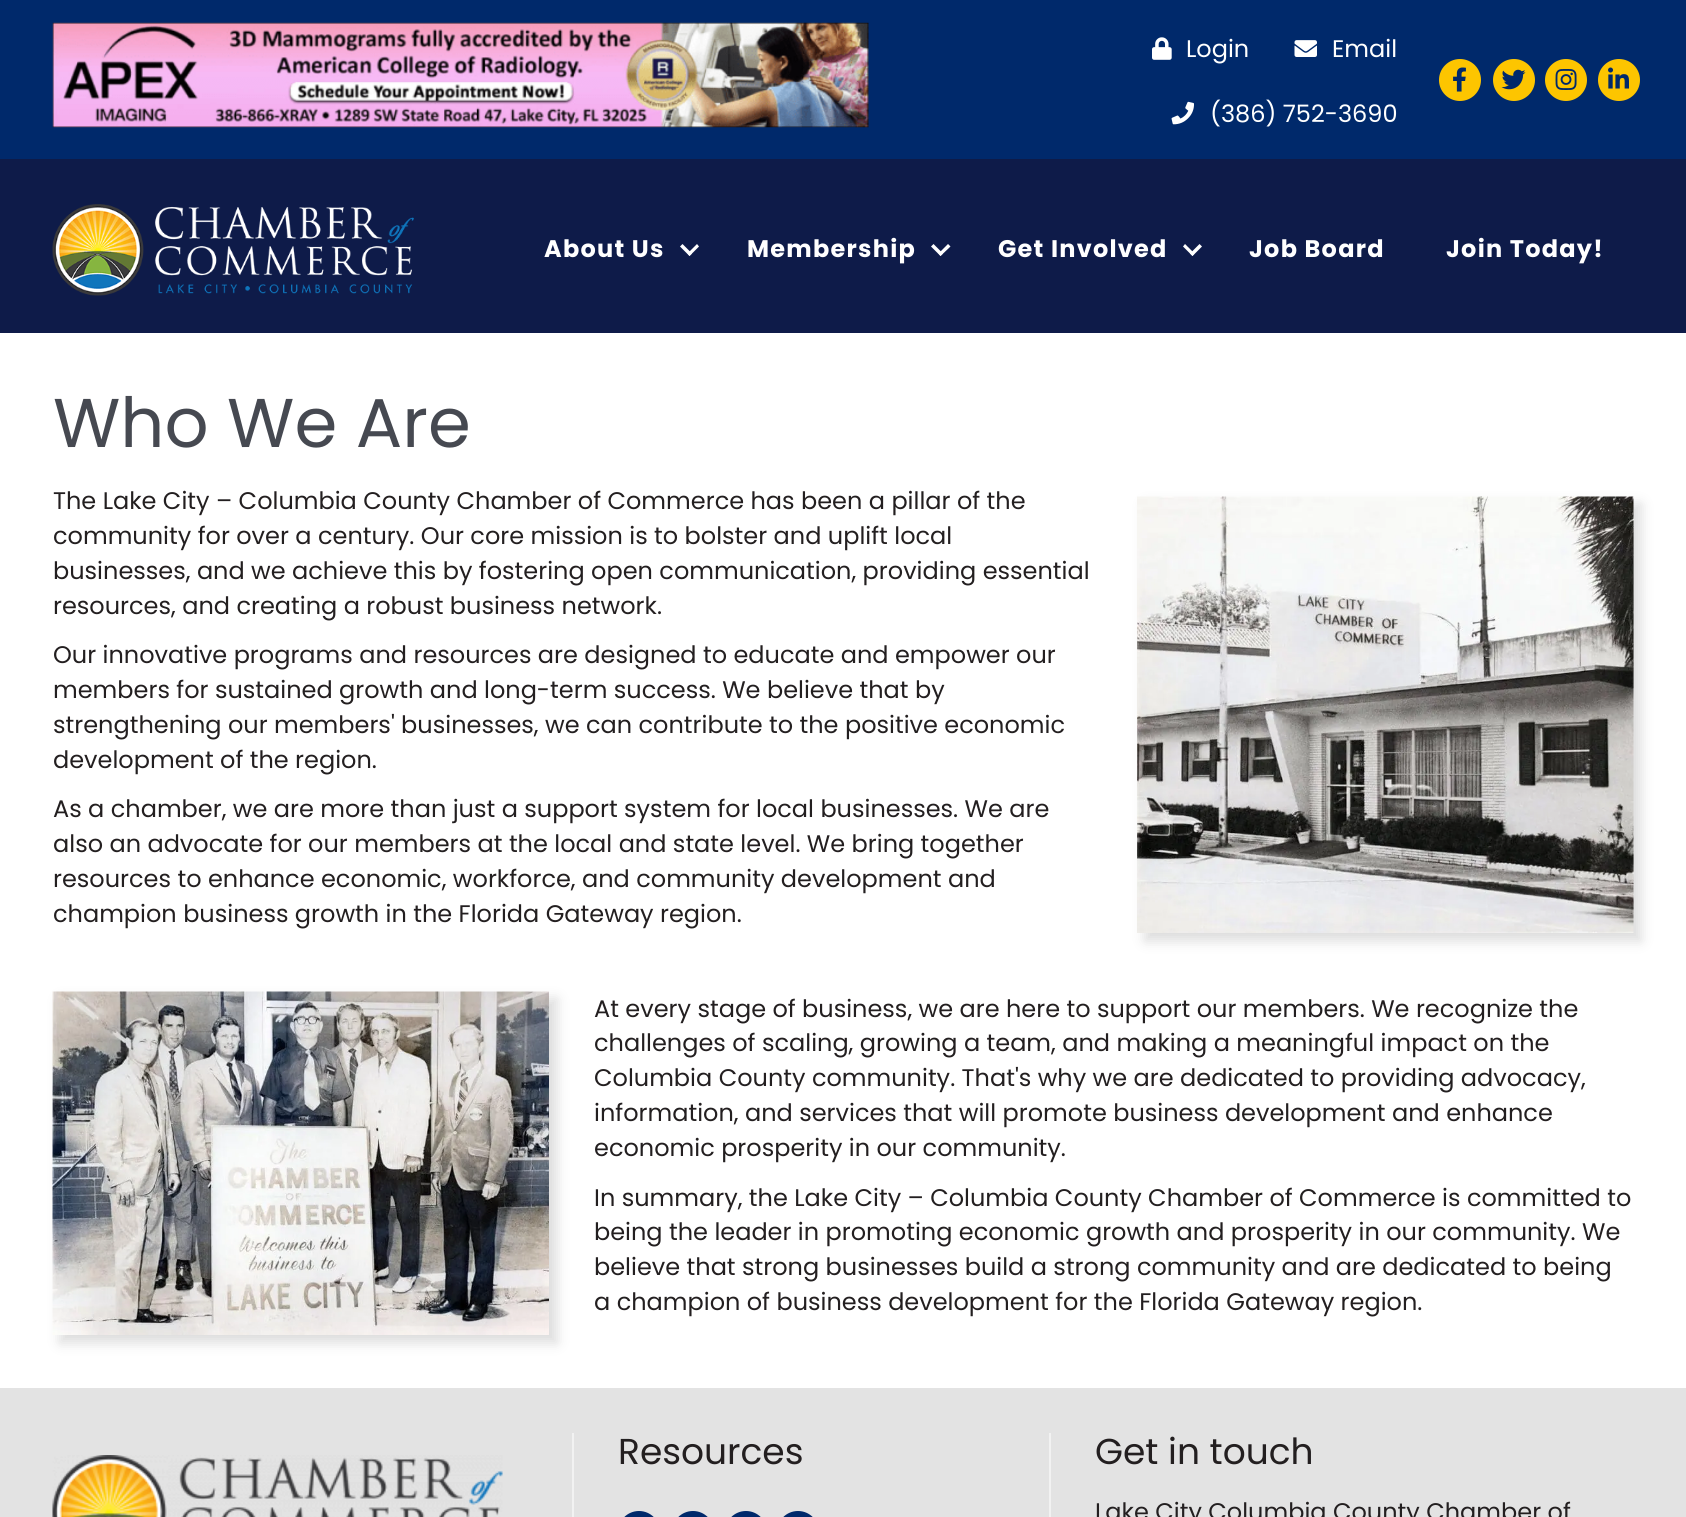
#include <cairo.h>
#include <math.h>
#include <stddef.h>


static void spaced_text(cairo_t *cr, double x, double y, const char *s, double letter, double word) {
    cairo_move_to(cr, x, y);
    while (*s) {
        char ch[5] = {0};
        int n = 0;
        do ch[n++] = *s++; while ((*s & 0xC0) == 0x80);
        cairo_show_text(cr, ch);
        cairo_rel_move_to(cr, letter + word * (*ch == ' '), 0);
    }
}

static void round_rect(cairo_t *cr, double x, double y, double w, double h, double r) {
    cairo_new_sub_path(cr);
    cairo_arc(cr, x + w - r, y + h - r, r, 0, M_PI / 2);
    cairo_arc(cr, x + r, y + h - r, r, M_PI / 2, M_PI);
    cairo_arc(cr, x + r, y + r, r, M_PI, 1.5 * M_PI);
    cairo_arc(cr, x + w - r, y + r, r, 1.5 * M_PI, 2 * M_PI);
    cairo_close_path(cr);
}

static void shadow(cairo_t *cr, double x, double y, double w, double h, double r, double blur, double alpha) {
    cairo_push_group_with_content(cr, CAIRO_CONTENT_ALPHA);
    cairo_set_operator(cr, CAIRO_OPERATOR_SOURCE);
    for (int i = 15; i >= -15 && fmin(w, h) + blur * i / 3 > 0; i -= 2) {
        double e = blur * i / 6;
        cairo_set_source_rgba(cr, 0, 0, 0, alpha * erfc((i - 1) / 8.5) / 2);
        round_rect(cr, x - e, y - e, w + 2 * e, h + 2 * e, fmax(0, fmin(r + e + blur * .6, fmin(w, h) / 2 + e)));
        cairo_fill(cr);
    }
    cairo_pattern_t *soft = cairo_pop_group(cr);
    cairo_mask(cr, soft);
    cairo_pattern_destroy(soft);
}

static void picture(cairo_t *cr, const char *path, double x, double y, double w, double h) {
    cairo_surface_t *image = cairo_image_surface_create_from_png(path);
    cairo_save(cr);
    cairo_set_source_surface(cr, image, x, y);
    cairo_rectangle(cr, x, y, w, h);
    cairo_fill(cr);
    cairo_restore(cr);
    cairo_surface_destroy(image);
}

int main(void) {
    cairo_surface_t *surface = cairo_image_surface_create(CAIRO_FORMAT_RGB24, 1686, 1517);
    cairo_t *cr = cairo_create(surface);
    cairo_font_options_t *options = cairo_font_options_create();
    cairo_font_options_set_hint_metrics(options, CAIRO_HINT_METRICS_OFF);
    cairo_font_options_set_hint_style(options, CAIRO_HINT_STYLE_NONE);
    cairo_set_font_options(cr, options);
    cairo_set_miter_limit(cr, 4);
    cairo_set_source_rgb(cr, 0, 0.161, 0.42);
    cairo_paint(cr);
    picture(cr, "img1.png", 52, 22, 817, 106);
    picture(cr, "img2.png", 1152, 37, 20, 23);
    cairo_select_font_face(cr, "Poppins", CAIRO_FONT_SLANT_NORMAL, CAIRO_FONT_WEIGHT_NORMAL);
    cairo_set_font_size(cr, 24);
    cairo_set_source_rgb(cr, 1, 1, 1);
    cairo_move_to(cr, 1186, 57);
    cairo_show_text(cr, "Login");
    picture(cr, "img3.png", 1294, 40, 23, 17);
    cairo_move_to(cr, 1332, 57);
    cairo_show_text(cr, "Email");
    picture(cr, "img4.png", 1171, 101, 23, 24);
    cairo_move_to(cr, 1210, 122);
    cairo_show_text(cr, "(386) 752-3690");
    cairo_set_source_rgb(cr, 0.992, 0.773, 0);
    cairo_new_path(cr);
    cairo_arc(cr, 1460, 80, 21, 0, 2 * M_PI);
    cairo_fill(cr);
    picture(cr, "img5.png", 1453, 67, 13, 25);
    cairo_arc(cr, 1514, 80, 21, 0, 2 * M_PI);
    cairo_fill(cr);
    picture(cr, "img6.png", 1501, 69, 25, 21);
    cairo_arc(cr, 1566, 80, 21, 0, 2 * M_PI);
    cairo_fill(cr);
    picture(cr, "img7.png", 1555, 69, 22, 21);
    cairo_arc(cr, 1619, 80, 21, 0, 2 * M_PI);
    cairo_fill(cr);
    picture(cr, "img8.png", 1608, 67, 21, 22);
    cairo_set_source_rgb(cr, 0.055, 0.106, 0.286);
    cairo_rectangle(cr, 0, 159, 1686, 174);
    cairo_fill(cr);
    picture(cr, "img9.png", 52, 204, 362, 92);
    cairo_select_font_face(cr, "Poppins", CAIRO_FONT_SLANT_NORMAL, CAIRO_FONT_WEIGHT_BOLD);
    cairo_set_source_rgb(cr, 1, 1, 1);
    spaced_text(cr, 544, 257, "About Us", 1.25, 0);
    cairo_new_path(cr);
    cairo_move_to(cr, 697, 244);
    cairo_line_to(cr, 699, 246.5);
    cairo_line_to(cr, 689.5, 256);
    cairo_line_to(cr, 687.5, 253.5);
    cairo_close_path(cr);
    cairo_fill(cr);
    cairo_new_path(cr);
    cairo_move_to(cr, 682.5, 244);
    cairo_line_to(cr, 692, 253.5);
    cairo_line_to(cr, 689.5, 256);
    cairo_line_to(cr, 680, 246.5);
    cairo_close_path(cr);
    cairo_fill(cr);
    spaced_text(cr, 747, 257, "Membership", 1.25, 0);
    cairo_new_path(cr);
    cairo_move_to(cr, 948, 244);
    cairo_line_to(cr, 950.5, 246.5);
    cairo_line_to(cr, 940.5, 256);
    cairo_line_to(cr, 938.5, 253.5);
    cairo_close_path(cr);
    cairo_fill(cr);
    cairo_new_path(cr);
    cairo_move_to(cr, 933.5, 244);
    cairo_line_to(cr, 943, 253.5);
    cairo_line_to(cr, 940.5, 256);
    cairo_line_to(cr, 931, 246.5);
    cairo_close_path(cr);
    cairo_fill(cr);
    spaced_text(cr, 998, 257, "Get Involved", 1.25, 0);
    cairo_new_path(cr);
    cairo_move_to(cr, 1199.5, 244);
    cairo_line_to(cr, 1202, 246.5);
    cairo_line_to(cr, 1192.5, 256);
    cairo_line_to(cr, 1190, 253.5);
    cairo_close_path(cr);
    cairo_fill(cr);
    cairo_new_path(cr);
    cairo_move_to(cr, 1185, 244);
    cairo_line_to(cr, 1194.5, 253.5);
    cairo_line_to(cr, 1192.5, 256);
    cairo_line_to(cr, 1183, 246.5);
    cairo_close_path(cr);
    cairo_fill(cr);
    spaced_text(cr, 1249, 257, "Job Board", 1.25, 0);
    spaced_text(cr, 1446, 257, "Join Today!", 1.25, 0);
    cairo_rectangle(cr, 0, 333, 1686, 1055);
    cairo_fill(cr);
    cairo_select_font_face(cr, "Poppins", CAIRO_FONT_SLANT_NORMAL, CAIRO_FONT_WEIGHT_NORMAL);
    cairo_set_font_size(cr, 69);
    cairo_set_source_rgb(cr, 0.275, 0.286, 0.318);
    cairo_move_to(cr, 53, 447);
    cairo_show_text(cr, "Who We Are");
    cairo_set_font_size(cr, 24);
    cairo_set_source_rgb(cr, 0.137, 0.122, 0.125);
    cairo_move_to(cr, 53, 509);
    cairo_show_text(cr, "The Lake City – Columbia County Chamber of Commerce has been a pillar of the");
    cairo_move_to(cr, 53, 544);
    cairo_show_text(cr, "community for over a century. Our core mission is to bolster and uplift local");
    cairo_move_to(cr, 53, 579);
    cairo_show_text(cr, "businesses, and we achieve this by fostering open communication, providing essential");
    cairo_move_to(cr, 53, 614);
    cairo_show_text(cr, "resources, and creating a robust business network.");
    cairo_move_to(cr, 53, 663);
    cairo_show_text(cr, "Our innovative programs and resources are designed to educate and empower our");
    cairo_move_to(cr, 53, 698);
    cairo_show_text(cr, "members for sustained growth and long-term success. We believe that by");
    cairo_move_to(cr, 53, 733);
    cairo_show_text(cr, "strengthening our members' businesses, we can contribute to the positive economic");
    cairo_move_to(cr, 53, 768);
    cairo_show_text(cr, "development of the region.");
    cairo_move_to(cr, 53, 817);
    cairo_show_text(cr, "As a chamber, we are more than just a support system for local businesses. We are");
    cairo_move_to(cr, 53, 852);
    cairo_show_text(cr, "also an advocate for our members at the local and state level. We bring together");
    cairo_move_to(cr, 53, 887);
    cairo_show_text(cr, "resources to enhance economic, workforce, and community development and");
    cairo_move_to(cr, 53, 922);
    cairo_show_text(cr, "champion business growth in the Florida Gateway region.");
    cairo_set_source_rgb(cr, 0.867, 0.867, 0.867);
    shadow(cr, 1145, 504, 496, 437, 0, 6, 1);
    picture(cr, "img10.png", 1137, 496, 497, 437);
    shadow(cr, 60, 999, 497, 344, 0, 6, 1);
    picture(cr, "img11.png", 52, 991, 497, 344);
    cairo_set_source_rgb(cr, 0.137, 0.122, 0.125);
    cairo_move_to(cr, 594, 1017);
    cairo_show_text(cr, "At every stage of business, we are here to support our members. We recognize the");
    cairo_move_to(cr, 594, 1051);
    cairo_show_text(cr, "challenges of scaling, growing a team, and making a meaningful impact on the");
    cairo_move_to(cr, 594, 1086);
    cairo_show_text(cr, "Columbia County community. That's why we are dedicated to providing advocacy,");
    cairo_move_to(cr, 594, 1121);
    cairo_show_text(cr, "information, and services that will promote business development and enhance");
    cairo_move_to(cr, 594, 1156);
    cairo_show_text(cr, "economic prosperity in our community.");
    cairo_move_to(cr, 594, 1206);
    cairo_show_text(cr, "In summary, the Lake City – Columbia County Chamber of Commerce is committed to");
    cairo_move_to(cr, 594, 1240);
    cairo_show_text(cr, "being the leader in promoting economic growth and prosperity in our community. We");
    cairo_move_to(cr, 594, 1275);
    cairo_show_text(cr, "believe that strong businesses build a strong community and are dedicated to being");
    cairo_move_to(cr, 594, 1310);
    cairo_show_text(cr, "a champion of business development for the Florida Gateway region.");
    cairo_set_source_rgb(cr, 0.89, 0.89, 0.89);
    cairo_rectangle(cr, 0, 1388, 1686, 129);
    cairo_fill(cr);
    cairo_set_source_rgb(cr, 0.949, 0.949, 0.949);
    cairo_rectangle(cr, 572, 1433, 2, 84);
    cairo_fill(cr);
    cairo_set_font_size(cr, 36);
    cairo_set_source_rgb(cr, 0.137, 0.122, 0.125);
    cairo_move_to(cr, 618, 1464);
    cairo_show_text(cr, "Resources");
    cairo_set_source_rgb(cr, 0, 0.161, 0.42);
    round_rect(cr, 618, 1511, 42, 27, 21);
    cairo_fill(cr);
    round_rect(cr, 672, 1511, 42, 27, 21);
    cairo_fill(cr);
    round_rect(cr, 725, 1511, 42, 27, 21);
    cairo_fill(cr);
    round_rect(cr, 777, 1511, 42, 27, 21);
    cairo_fill(cr);
    cairo_set_source_rgb(cr, 0.949, 0.949, 0.949);
    cairo_rectangle(cr, 1049, 1433, 2, 84);
    cairo_fill(cr);
    cairo_set_source_rgb(cr, 0.137, 0.122, 0.125);
    cairo_move_to(cr, 1095, 1464);
    cairo_show_text(cr, "Get in touch");
    cairo_set_font_size(cr, 24);
    cairo_move_to(cr, 1095, 1520);
    cairo_show_text(cr, "Lake City Columbia County Chamber of");
    picture(cr, "img12.png", 52, 1455, 451, 62);
    cairo_surface_write_to_png(surface, "page.png");
    cairo_font_options_destroy(options);
    cairo_destroy(cr);
    cairo_surface_destroy(surface);
    return 0;
}
